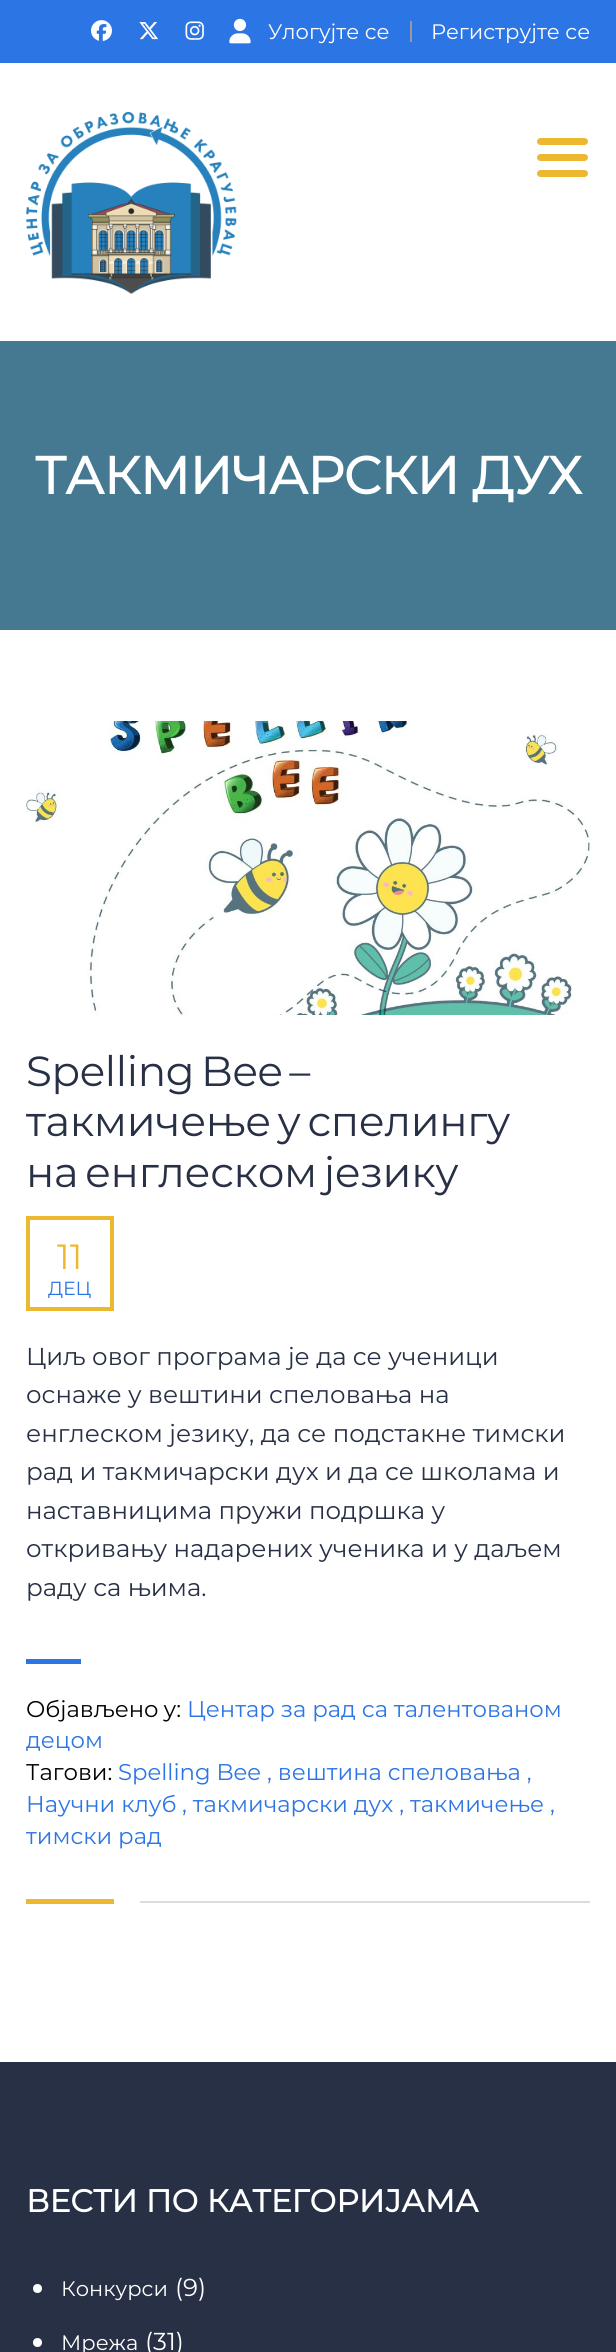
#include <cairo.h>
#include <math.h>
#include <stddef.h>


static void spaced_text(cairo_t *cr, double x, double y, const char *s, double letter, double word) {
    cairo_move_to(cr, x, y);
    while (*s) {
        char ch[5] = {0};
        int n = 0;
        do ch[n++] = *s++; while ((*s & 0xC0) == 0x80);
        cairo_show_text(cr, ch);
        cairo_rel_move_to(cr, letter + word * (*ch == ' '), 0);
    }
}

static void round_rect(cairo_t *cr, double x, double y, double w, double h, double r) {
    cairo_new_sub_path(cr);
    cairo_arc(cr, x + w - r, y + h - r, r, 0, M_PI / 2);
    cairo_arc(cr, x + r, y + h - r, r, M_PI / 2, M_PI);
    cairo_arc(cr, x + r, y + r, r, M_PI, 1.5 * M_PI);
    cairo_arc(cr, x + w - r, y + r, r, 1.5 * M_PI, 2 * M_PI);
    cairo_close_path(cr);
}

static void picture(cairo_t *cr, const char *path, double x, double y, double w, double h) {
    cairo_surface_t *image = cairo_image_surface_create_from_png(path);
    cairo_save(cr);
    cairo_set_source_surface(cr, image, x, y);
    cairo_rectangle(cr, x, y, w, h);
    cairo_fill(cr);
    cairo_restore(cr);
    cairo_surface_destroy(image);
}

int main(void) {
    cairo_surface_t *surface = cairo_image_surface_create(CAIRO_FORMAT_RGB24, 616, 2352);
    cairo_t *cr = cairo_create(surface);
    cairo_font_options_t *options = cairo_font_options_create();
    cairo_font_options_set_hint_metrics(options, CAIRO_HINT_METRICS_OFF);
    cairo_font_options_set_hint_style(options, CAIRO_HINT_STYLE_NONE);
    cairo_set_font_options(cr, options);
    cairo_set_miter_limit(cr, 4);
    cairo_set_source_rgb(cr, 1, 1, 1);
    cairo_paint(cr);
    cairo_set_source_rgb(cr, 0.173, 0.459, 0.894);
    cairo_rectangle(cr, 0, 0, 616, 63);
    cairo_fill(cr);
    picture(cr, "img1.png", 91, 20, 21, 21);
    picture(cr, "img2.png", 139, 22, 19, 18);
    picture(cr, "img3.png", 185, 21, 19, 19);
    picture(cr, "img4.png", 229, 18, 22, 26);
    cairo_select_font_face(cr, "Montserrat Thin", CAIRO_FONT_SLANT_NORMAL, CAIRO_FONT_WEIGHT_NORMAL);
    cairo_set_font_size(cr, 21);
    cairo_set_source_rgb(cr, 1, 1, 1);
    cairo_move_to(cr, 268, 39);
    cairo_show_text(cr, "Улогујте се");
    cairo_set_source_rgb(cr, 0.604, 0.604, 0.604);
    cairo_rectangle(cr, 410, 21, 2, 21);
    cairo_fill(cr);
    cairo_set_source_rgb(cr, 1, 1, 1);
    cairo_move_to(cr, 431, 39);
    cairo_show_text(cr, "Региструјте се");
    picture(cr, "img5.png", 26, 112, 211, 182);
    cairo_set_source_rgb(cr, 0.918, 0.722, 0.188);
    round_rect(cr, 537, 138, 51, 7, 3.5);
    cairo_fill(cr);
    round_rect(cr, 537, 154, 51, 7, 3.5);
    cairo_fill(cr);
    round_rect(cr, 537, 170, 51, 7, 3.5);
    cairo_fill(cr);
    cairo_set_source_rgb(cr, 0.271, 0.475, 0.573);
    cairo_rectangle(cr, 0, 341, 616, 289);
    cairo_fill(cr);
    cairo_select_font_face(cr, "Montserrat", CAIRO_FONT_SLANT_NORMAL, CAIRO_FONT_WEIGHT_BOLD);
    cairo_set_font_size(cr, 52.5);
    cairo_set_source_rgb(cr, 1, 1, 1);
    spaced_text(cr, 35, 494, "ТАКМИЧАРСКИ ДУХ", -0.75, 0);
    picture(cr, "img6.png", 26, 721, 564, 294);
    cairo_select_font_face(cr, "Montserrat Thin", CAIRO_FONT_SLANT_NORMAL, CAIRO_FONT_WEIGHT_NORMAL);
    cairo_set_font_size(cr, 42);
    cairo_set_source_rgb(cr, 0.153, 0.188, 0.267);
    spaced_text(cr, 26, 1086, "Spelling Bee –", -0.3, -4);
    spaced_text(cr, 26, 1136, "такмичење у спелингу", -0.3, -4);
    spaced_text(cr, 26, 1187, "на енглеском језику", -0.3, -4);
    cairo_rectangle(cr, 28, 1218, 84, 91);
    cairo_set_source_rgb(cr, 0.918, 0.722, 0.188);
    cairo_set_line_width(cr, 4);
    cairo_stroke(cr);
    cairo_set_font_size(cr, 35);
    cairo_move_to(cr, 57, 1269);
    cairo_show_text(cr, "11");
    cairo_set_font_size(cr, 19);
    cairo_set_source_rgb(cr, 0.173, 0.459, 0.894);
    cairo_move_to(cr, 48, 1295);
    cairo_show_text(cr, "ДЕЦ");
    cairo_set_font_size(cr, 24.5);
    cairo_set_source_rgb(cr, 0.153, 0.188, 0.267);
    cairo_move_to(cr, 26, 1365);
    cairo_show_text(cr, "Циљ овог програма је да се ученици");
    cairo_move_to(cr, 26, 1403);
    cairo_show_text(cr, "оснаже у вештини спеловања на");
    cairo_move_to(cr, 26, 1442);
    cairo_show_text(cr, "енглеском језику, да се подстакне тимски");
    cairo_move_to(cr, 26, 1480);
    cairo_show_text(cr, "рад и такмичарски дух и да се школама и");
    cairo_move_to(cr, 26, 1519);
    cairo_show_text(cr, "наставницима пружи подршка у");
    cairo_move_to(cr, 26, 1557);
    cairo_show_text(cr, "откривању надарених ученика и у даљем");
    cairo_move_to(cr, 26, 1596);
    cairo_show_text(cr, "раду са њима.");
    cairo_set_source_rgb(cr, 0.173, 0.459, 0.894);
    cairo_rectangle(cr, 26, 1659, 55, 5);
    cairo_fill(cr);
    cairo_set_font_size(cr, 22.75);
    cairo_set_source_rgb(cr, 0, 0, 0);
    spaced_text(cr, 26, 1717, "Објављено у:", 0, -1);
    cairo_set_source_rgb(cr, 0.173, 0.459, 0.894);
    cairo_move_to(cr, 187, 1717);
    cairo_show_text(cr, "Центар за рад са талентованом");
    cairo_move_to(cr, 26, 1748);
    cairo_show_text(cr, "децом");
    cairo_set_source_rgb(cr, 0, 0, 0);
    cairo_move_to(cr, 26, 1780);
    cairo_show_text(cr, "Тагови:");
    cairo_set_source_rgb(cr, 0.173, 0.459, 0.894);
    cairo_move_to(cr, 118, 1780);
    cairo_show_text(cr, "Spelling Bee , вештина спеловања ,");
    cairo_move_to(cr, 26, 1812);
    cairo_show_text(cr, "Научни клуб");
    cairo_move_to(cr, 182, 1812);
    cairo_show_text(cr, ", такмичарски дух , такмичење ,");
    cairo_move_to(cr, 26, 1844);
    cairo_show_text(cr, "тимски рад");
    cairo_set_source_rgb(cr, 0.918, 0.722, 0.188);
    cairo_rectangle(cr, 26, 1899, 88, 5);
    cairo_fill(cr);
    cairo_set_source_rgb(cr, 0.863, 0.863, 0.863);
    cairo_rectangle(cr, 140, 1901, 450, 2);
    cairo_fill(cr);
    cairo_set_source_rgb(cr, 0.153, 0.188, 0.267);
    cairo_rectangle(cr, 0, 2062, 616, 290);
    cairo_fill(cr);
    cairo_select_font_face(cr, "Montserrat", CAIRO_FONT_SLANT_NORMAL, CAIRO_FONT_WEIGHT_BOLD);
    cairo_set_font_size(cr, 31.5);
    cairo_set_source_rgb(cr, 1, 1, 1);
    cairo_move_to(cr, 26, 2212);
    cairo_show_text(cr, "ВЕСТИ ПО КАТЕГОРИЈАМА");
    cairo_new_path(cr);
    cairo_arc(cr, 37.5, 2288.5, 4.5, 0, 2 * M_PI);
    cairo_fill(cr);
    cairo_select_font_face(cr, "Montserrat Thin", CAIRO_FONT_SLANT_NORMAL, CAIRO_FONT_WEIGHT_NORMAL);
    cairo_set_font_size(cr, 21);
    cairo_move_to(cr, 61, 2296);
    cairo_show_text(cr, "Конкурси");
    cairo_set_font_size(cr, 24.5);
    cairo_move_to(cr, 175, 2296);
    cairo_show_text(cr, "(9)");
    cairo_new_path(cr);
    cairo_arc(cr, 37.5, 2342.5, 4.5, 0, 2 * M_PI);
    cairo_fill(cr);
    cairo_set_font_size(cr, 21);
    cairo_move_to(cr, 61, 2350);
    cairo_show_text(cr, "Мрежа");
    cairo_set_font_size(cr, 24.5);
    cairo_move_to(cr, 145, 2350);
    cairo_show_text(cr, "(31)");
    cairo_surface_write_to_png(surface, "page.png");
    cairo_font_options_destroy(options);
    cairo_destroy(cr);
    cairo_surface_destroy(surface);
    return 0;
}
